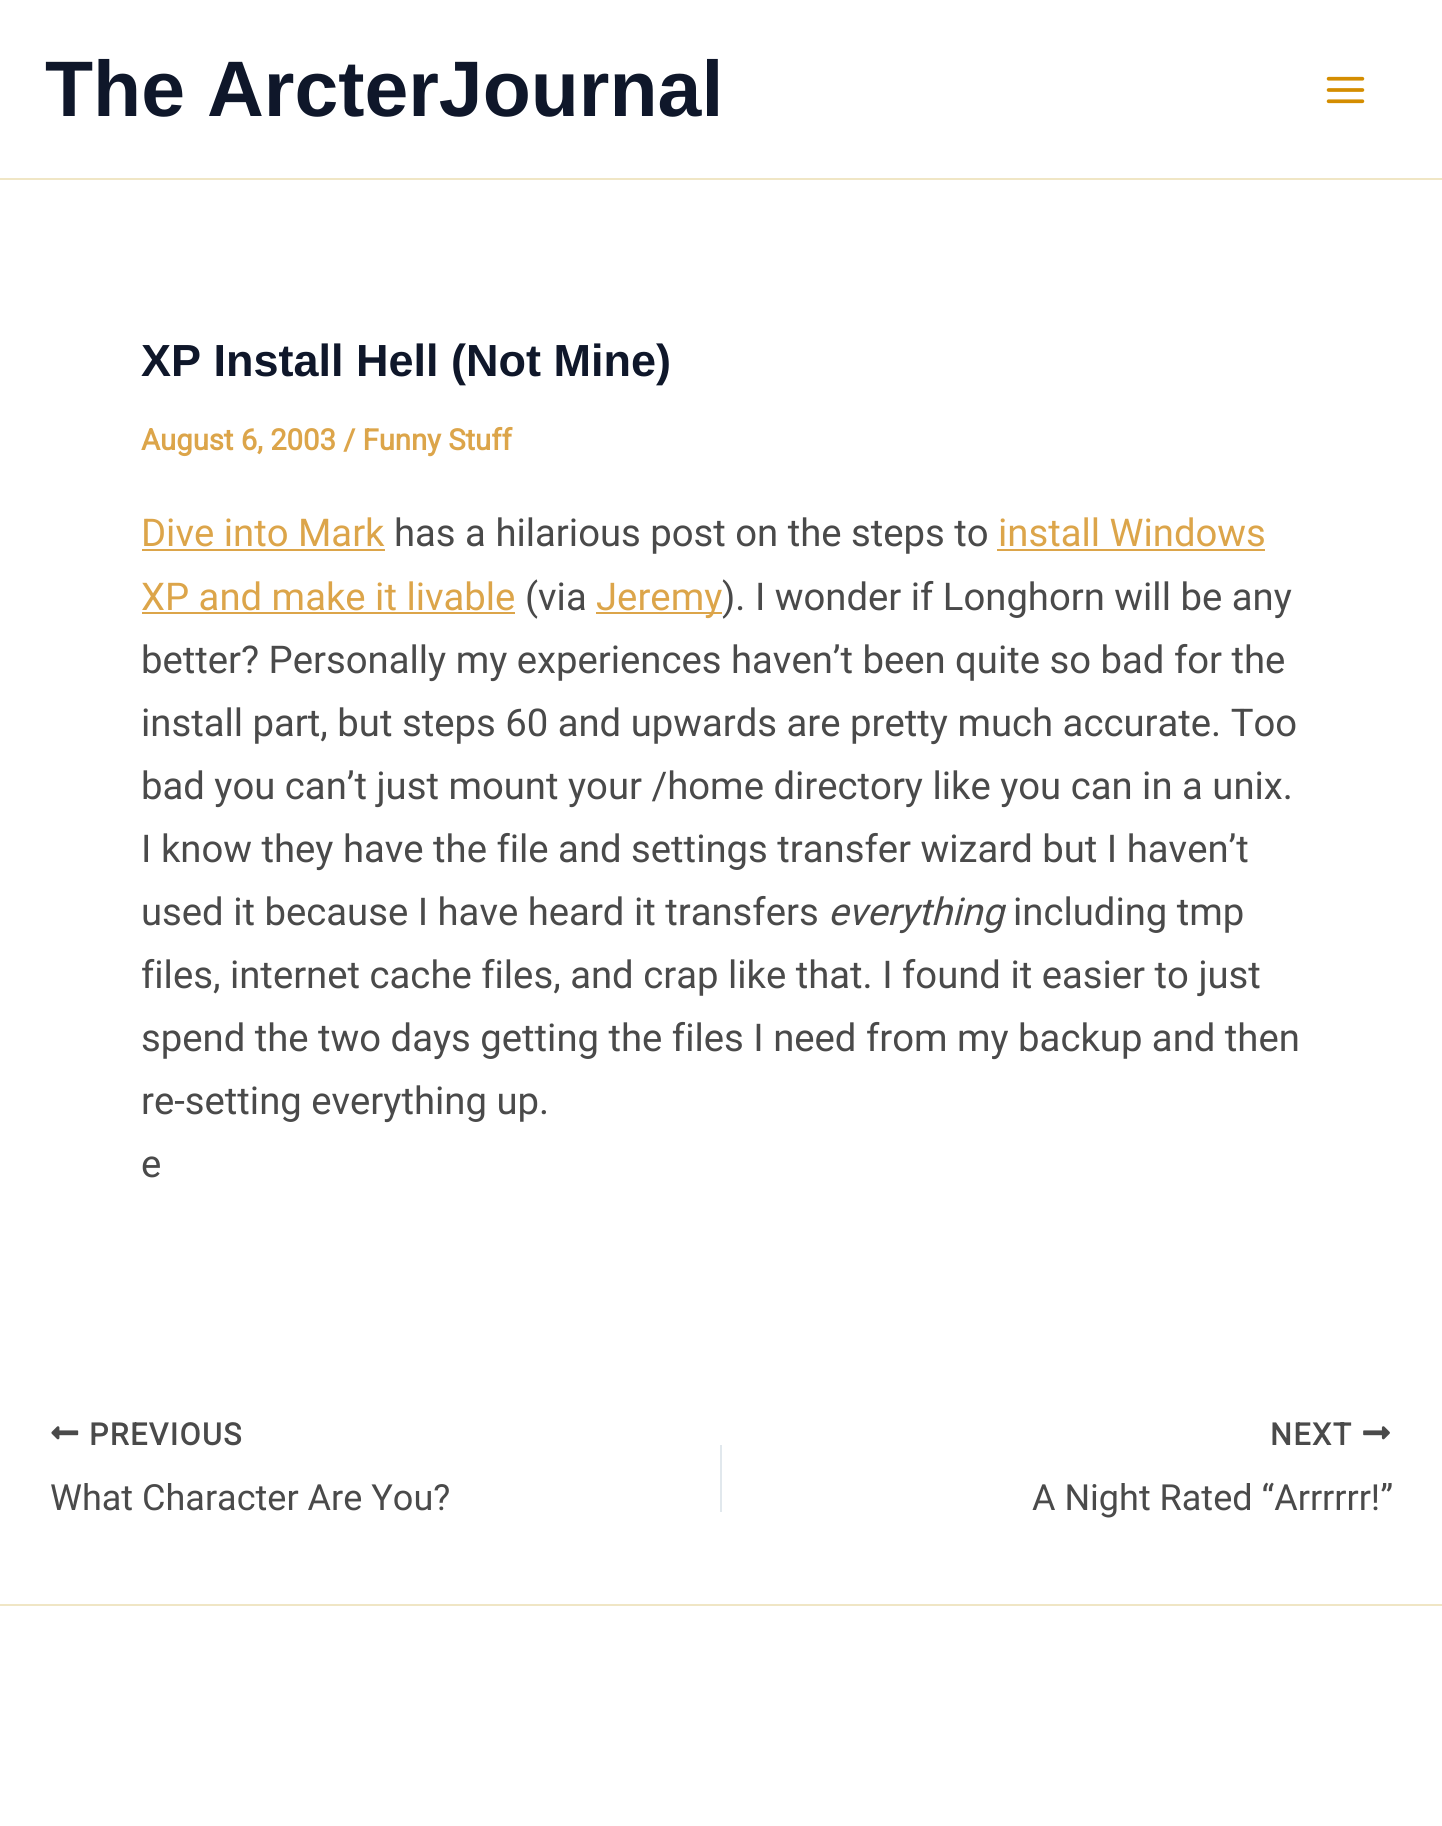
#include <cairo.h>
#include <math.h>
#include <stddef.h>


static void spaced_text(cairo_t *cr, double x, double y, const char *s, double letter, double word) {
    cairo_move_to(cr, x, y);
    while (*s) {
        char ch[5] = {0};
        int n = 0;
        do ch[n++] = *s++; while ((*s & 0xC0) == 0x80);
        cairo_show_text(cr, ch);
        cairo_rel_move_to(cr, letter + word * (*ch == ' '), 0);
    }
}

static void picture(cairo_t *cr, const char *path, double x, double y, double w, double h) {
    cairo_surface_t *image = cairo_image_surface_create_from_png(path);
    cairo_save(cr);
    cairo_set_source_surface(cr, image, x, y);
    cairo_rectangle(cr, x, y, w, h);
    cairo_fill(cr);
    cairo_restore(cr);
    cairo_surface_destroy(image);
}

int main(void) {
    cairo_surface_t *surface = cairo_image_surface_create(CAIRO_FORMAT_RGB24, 1442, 1826);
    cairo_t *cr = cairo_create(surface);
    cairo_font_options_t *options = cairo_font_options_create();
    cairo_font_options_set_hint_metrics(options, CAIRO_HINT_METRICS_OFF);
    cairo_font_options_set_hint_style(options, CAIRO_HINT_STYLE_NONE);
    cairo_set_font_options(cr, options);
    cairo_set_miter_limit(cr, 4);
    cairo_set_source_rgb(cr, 1, 1, 1);
    cairo_paint(cr);
    cairo_set_source_rgb(cr, 0.941, 0.902, 0.773);
    cairo_rectangle(cr, 0, 178, 1442, 2);
    cairo_fill(cr);
    cairo_select_font_face(cr, "Liberation Sans", CAIRO_FONT_SLANT_NORMAL, CAIRO_FONT_WEIGHT_BOLD);
    cairo_set_font_size(cr, 78.75);
    cairo_set_source_rgb(cr, 0.059, 0.09, 0.165);
    cairo_move_to(cr, 45, 116);
    cairo_show_text(cr, "The ArcterJournal");
    picture(cr, "img1.png", 1326, 76, 39, 28);
    cairo_set_font_size(cr, 45);
    cairo_move_to(cr, 141, 376);
    cairo_show_text(cr, "XP Install Hell (Not Mine)");
    cairo_select_font_face(cr, "Roboto", CAIRO_FONT_SLANT_NORMAL, CAIRO_FONT_WEIGHT_BOLD);
    cairo_set_font_size(cr, 29.25);
    cairo_set_source_rgb(cr, 0.863, 0.647, 0.29);
    cairo_move_to(cr, 141, 450);
    cairo_show_text(cr, "August 6, 2003 / Funny Stuff");
    cairo_select_font_face(cr, "Roboto", CAIRO_FONT_SLANT_NORMAL, CAIRO_FONT_WEIGHT_NORMAL);
    cairo_set_font_size(cr, 38.25);
    cairo_move_to(cr, 141, 546);
    cairo_show_text(cr, "Dive into Mark");
    cairo_rectangle(cr, 142, 549, 243, 2);
    cairo_fill(cr);
    cairo_set_source_rgb(cr, 0.29, 0.29, 0.29);
    cairo_move_to(cr, 394, 546);
    cairo_show_text(cr, "has a hilarious post on the steps to");
    cairo_set_source_rgb(cr, 0.863, 0.647, 0.29);
    cairo_move_to(cr, 998, 546);
    cairo_show_text(cr, "install Windows");
    cairo_rectangle(cr, 997, 549, 268, 2);
    cairo_fill(cr);
    cairo_move_to(cr, 141, 610);
    cairo_show_text(cr, "XP and make it livable");
    cairo_rectangle(cr, 142, 612, 373, 2);
    cairo_fill(cr);
    cairo_set_source_rgb(cr, 0.29, 0.29, 0.29);
    cairo_move_to(cr, 525, 610);
    cairo_show_text(cr, "(via");
    cairo_set_source_rgb(cr, 0.863, 0.647, 0.29);
    cairo_rectangle(cr, 596, 612, 126, 2);
    cairo_fill(cr);
    cairo_move_to(cr, 596, 610);
    cairo_show_text(cr, "Jeremy");
    cairo_set_source_rgb(cr, 0.29, 0.29, 0.29);
    cairo_move_to(cr, 722, 610);
    cairo_show_text(cr, "). I wonder if Longhorn will be any");
    cairo_move_to(cr, 141, 673);
    cairo_show_text(cr, "better? Personally my experiences haven’t been quite so bad for the");
    cairo_move_to(cr, 141, 736);
    cairo_show_text(cr, "install part, but steps 60 and upwards are pretty much accurate. Too");
    cairo_move_to(cr, 141, 799);
    cairo_show_text(cr, "bad you can’t just mount your /home directory like you can in a unix.");
    cairo_move_to(cr, 141, 862);
    cairo_show_text(cr, "I know they have the file and settings transfer wizard but I haven’t");
    cairo_move_to(cr, 141, 925);
    cairo_show_text(cr, "used it because I have heard it transfers");
    cairo_select_font_face(cr, "Roboto", CAIRO_FONT_SLANT_ITALIC, CAIRO_FONT_WEIGHT_NORMAL);
    cairo_move_to(cr, 828, 925);
    cairo_show_text(cr, "everything");
    cairo_select_font_face(cr, "Roboto", CAIRO_FONT_SLANT_NORMAL, CAIRO_FONT_WEIGHT_NORMAL);
    cairo_move_to(cr, 1013, 925);
    cairo_show_text(cr, "including tmp");
    cairo_move_to(cr, 141, 988);
    cairo_show_text(cr, "files, internet cache files, and crap like that. I found it easier to just");
    cairo_move_to(cr, 141, 1051);
    cairo_show_text(cr, "spend the two days getting the files I need from my backup and then");
    cairo_move_to(cr, 141, 1114);
    cairo_show_text(cr, "re-setting everything up.");
    cairo_move_to(cr, 141, 1177);
    cairo_show_text(cr, "e");
    picture(cr, "img2.png", 51, 1426, 28, 14);
    cairo_select_font_face(cr, "Roboto", CAIRO_FONT_SLANT_NORMAL, CAIRO_FONT_WEIGHT_BOLD);
    cairo_set_font_size(cr, 30.5);
    spaced_text(cr, 89, 1445, "PREVIOUS", 1.5, 0);
    cairo_select_font_face(cr, "Roboto", CAIRO_FONT_SLANT_NORMAL, CAIRO_FONT_WEIGHT_NORMAL);
    cairo_set_font_size(cr, 36);
    cairo_move_to(cr, 50, 1510);
    cairo_show_text(cr, "What Character Are You?");
    cairo_set_source_rgb(cr, 0.882, 0.91, 0.929);
    cairo_rectangle(cr, 720, 1445, 2, 67);
    cairo_fill(cr);
    cairo_select_font_face(cr, "Roboto", CAIRO_FONT_SLANT_NORMAL, CAIRO_FONT_WEIGHT_BOLD);
    cairo_set_font_size(cr, 30.5);
    cairo_set_source_rgb(cr, 0.29, 0.29, 0.29);
    spaced_text(cr, 1270, 1445, "NEXT", 1.5, 0);
    picture(cr, "img3.png", 1363, 1426, 27, 14);
    cairo_select_font_face(cr, "Roboto", CAIRO_FONT_SLANT_NORMAL, CAIRO_FONT_WEIGHT_NORMAL);
    cairo_set_font_size(cr, 36);
    cairo_move_to(cr, 1032, 1510);
    cairo_show_text(cr, "A Night Rated “Arrrrrr!”");
    cairo_set_source_rgb(cr, 0.941, 0.902, 0.773);
    cairo_rectangle(cr, 0, 1604, 1442, 2);
    cairo_fill(cr);
    cairo_surface_write_to_png(surface, "page.png");
    cairo_font_options_destroy(options);
    cairo_destroy(cr);
    cairo_surface_destroy(surface);
    return 0;
}
